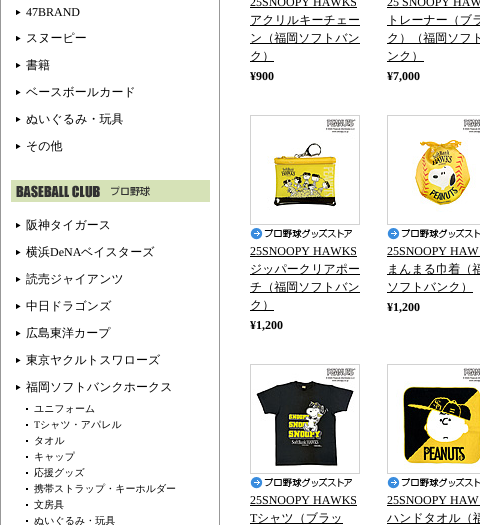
#include <cairo.h>
#include <math.h>
#include <stddef.h>


static void picture(cairo_t *cr, const char *path, double x, double y, double w, double h) {
    cairo_surface_t *image = cairo_image_surface_create_from_png(path);
    cairo_save(cr);
    cairo_set_source_surface(cr, image, x, y);
    cairo_rectangle(cr, x, y, w, h);
    cairo_fill(cr);
    cairo_restore(cr);
    cairo_surface_destroy(image);
}

int main(void) {
    cairo_surface_t *surface = cairo_image_surface_create(CAIRO_FORMAT_RGB24, 480, 525);
    cairo_t *cr = cairo_create(surface);
    cairo_font_options_t *options = cairo_font_options_create();
    cairo_font_options_set_hint_metrics(options, CAIRO_HINT_METRICS_OFF);
    cairo_font_options_set_hint_style(options, CAIRO_HINT_STYLE_NONE);
    cairo_set_font_options(cr, options);
    cairo_set_miter_limit(cr, 4);
    cairo_set_source_rgb(cr, 1, 1, 1);
    cairo_paint(cr);
    cairo_rectangle(cr, 0.5, -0.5, 219, 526);
    cairo_set_source_rgb(cr, 0.596, 0.596, 0.596);
    cairo_set_line_width(cr, 1);
    cairo_stroke(cr);
    picture(cr, "img1.png", 16, 10, 5, 5);
    cairo_select_font_face(cr, "Liberation Serif", CAIRO_FONT_SLANT_NORMAL, CAIRO_FONT_WEIGHT_NORMAL);
    cairo_set_font_size(cr, 12);
    cairo_set_source_rgb(cr, 0, 0, 0);
    cairo_move_to(cr, 26, 16);
    cairo_show_text(cr, "47BRAND");
    picture(cr, "img1.png", 16, 36, 5, 5);
    cairo_select_font_face(cr, "WenQuanYi Zen Hei Medium", CAIRO_FONT_SLANT_NORMAL, CAIRO_FONT_WEIGHT_NORMAL);
    cairo_move_to(cr, 26, 42);
    cairo_show_text(cr, "スヌーピー");
    picture(cr, "img1.png", 16, 63, 5, 5);
    cairo_move_to(cr, 26, 69);
    cairo_show_text(cr, "書籍");
    picture(cr, "img1.png", 16, 90, 5, 5);
    cairo_move_to(cr, 26, 96);
    cairo_show_text(cr, "ベースボールカード");
    picture(cr, "img1.png", 16, 117, 5, 5);
    cairo_move_to(cr, 26, 123);
    cairo_show_text(cr, "ぬいぐるみ・玩具");
    picture(cr, "img1.png", 16, 144, 5, 5);
    cairo_move_to(cr, 26, 150);
    cairo_show_text(cr, "その他");
    picture(cr, "img2.png", 11, 180, 199, 22);
    picture(cr, "img1.png", 16, 223, 5, 5);
    cairo_move_to(cr, 26, 229);
    cairo_show_text(cr, "阪神タイガース");
    picture(cr, "img1.png", 16, 250, 5, 5);
    cairo_move_to(cr, 26, 256);
    cairo_show_text(cr, "横浜");
    cairo_select_font_face(cr, "Liberation Serif", CAIRO_FONT_SLANT_NORMAL, CAIRO_FONT_WEIGHT_NORMAL);
    cairo_move_to(cr, 50, 256);
    cairo_show_text(cr, "DeNA");
    cairo_select_font_face(cr, "WenQuanYi Zen Hei Medium", CAIRO_FONT_SLANT_NORMAL, CAIRO_FONT_WEIGHT_NORMAL);
    cairo_move_to(cr, 81, 256);
    cairo_show_text(cr, "ベイスターズ");
    picture(cr, "img1.png", 16, 277, 5, 5);
    cairo_move_to(cr, 26, 283);
    cairo_show_text(cr, "読売ジャイアンツ");
    picture(cr, "img1.png", 16, 304, 5, 5);
    cairo_move_to(cr, 26, 310);
    cairo_show_text(cr, "中日ドラゴンズ");
    picture(cr, "img1.png", 16, 331, 5, 5);
    cairo_move_to(cr, 26, 337);
    cairo_show_text(cr, "広島東洋カープ");
    picture(cr, "img1.png", 16, 358, 5, 5);
    cairo_move_to(cr, 26, 364);
    cairo_show_text(cr, "東京ヤクルトスワローズ");
    picture(cr, "img1.png", 16, 385, 5, 5);
    cairo_move_to(cr, 26, 391);
    cairo_show_text(cr, "福岡ソフトバンクホークス");
    cairo_rectangle(cr, 26, 408, 2, 2);
    cairo_fill(cr);
    cairo_set_font_size(cr, 10);
    cairo_move_to(cr, 34, 412);
    cairo_show_text(cr, "ユニフォーム");
    cairo_rectangle(cr, 26, 424, 2, 2);
    cairo_fill(cr);
    cairo_select_font_face(cr, "Liberation Serif", CAIRO_FONT_SLANT_NORMAL, CAIRO_FONT_WEIGHT_NORMAL);
    cairo_move_to(cr, 34, 428);
    cairo_show_text(cr, "T");
    cairo_select_font_face(cr, "WenQuanYi Zen Hei Medium", CAIRO_FONT_SLANT_NORMAL, CAIRO_FONT_WEIGHT_NORMAL);
    cairo_move_to(cr, 40, 428);
    cairo_show_text(cr, "シャツ・アパレル");
    cairo_rectangle(cr, 26, 440, 2, 2);
    cairo_fill(cr);
    cairo_move_to(cr, 34, 444);
    cairo_show_text(cr, "タオル");
    cairo_rectangle(cr, 26, 456, 2, 2);
    cairo_fill(cr);
    cairo_move_to(cr, 34, 460);
    cairo_show_text(cr, "キャップ");
    cairo_rectangle(cr, 26, 472, 2, 2);
    cairo_fill(cr);
    cairo_move_to(cr, 34, 476);
    cairo_show_text(cr, "応援グッズ");
    cairo_rectangle(cr, 26, 488, 2, 2);
    cairo_fill(cr);
    cairo_move_to(cr, 34, 492);
    cairo_show_text(cr, "携帯ストラップ・キーホルダー");
    cairo_rectangle(cr, 26, 504, 2, 2);
    cairo_fill(cr);
    cairo_move_to(cr, 34, 508);
    cairo_show_text(cr, "文房具");
    cairo_rectangle(cr, 26, 520, 2, 2);
    cairo_fill(cr);
    cairo_move_to(cr, 34, 524);
    cairo_show_text(cr, "ぬいぐるみ・玩具");
    cairo_select_font_face(cr, "Liberation Serif", CAIRO_FONT_SLANT_NORMAL, CAIRO_FONT_WEIGHT_NORMAL);
    cairo_set_font_size(cr, 12);
    cairo_move_to(cr, 250, 6);
    cairo_show_text(cr, "25SNOOPY HAWKS");
    cairo_rectangle(cr, 250, 7, 107, 1);
    cairo_fill(cr);
    cairo_rectangle(cr, 250, 25, 110, 1);
    cairo_fill(cr);
    cairo_select_font_face(cr, "WenQuanYi Zen Hei Medium", CAIRO_FONT_SLANT_NORMAL, CAIRO_FONT_WEIGHT_NORMAL);
    cairo_move_to(cr, 250, 24);
    cairo_show_text(cr, "アクリルキーチェー");
    cairo_rectangle(cr, 250, 43, 110, 1);
    cairo_fill(cr);
    cairo_move_to(cr, 250, 42);
    cairo_show_text(cr, "ン（福岡ソフトバン");
    cairo_rectangle(cr, 250, 61, 24, 1);
    cairo_fill(cr);
    cairo_move_to(cr, 250, 60);
    cairo_show_text(cr, "ク）");
    cairo_select_font_face(cr, "Liberation Serif", CAIRO_FONT_SLANT_NORMAL, CAIRO_FONT_WEIGHT_BOLD);
    cairo_move_to(cr, 250, 80);
    cairo_show_text(cr, "¥900");
    cairo_select_font_face(cr, "Liberation Serif", CAIRO_FONT_SLANT_NORMAL, CAIRO_FONT_WEIGHT_NORMAL);
    cairo_move_to(cr, 387, 6);
    cairo_show_text(cr, "25 SNOOPY HAW");
    cairo_rectangle(cr, 387, 7, 93, 1);
    cairo_fill(cr);
    cairo_rectangle(cr, 387, 25, 93, 1);
    cairo_fill(cr);
    cairo_select_font_face(cr, "WenQuanYi Zen Hei Medium", CAIRO_FONT_SLANT_NORMAL, CAIRO_FONT_WEIGHT_NORMAL);
    cairo_move_to(cr, 387, 24);
    cairo_show_text(cr, "トレーナー（ブラ");
    cairo_rectangle(cr, 387, 43, 93, 1);
    cairo_fill(cr);
    cairo_move_to(cr, 387, 42);
    cairo_show_text(cr, "ク）（福岡ソフト");
    cairo_rectangle(cr, 387, 61, 37, 1);
    cairo_fill(cr);
    cairo_move_to(cr, 387, 60);
    cairo_show_text(cr, "ンク）");
    cairo_select_font_face(cr, "Liberation Serif", CAIRO_FONT_SLANT_NORMAL, CAIRO_FONT_WEIGHT_BOLD);
    cairo_move_to(cr, 387, 80);
    cairo_show_text(cr, "¥7,000");
    cairo_rectangle(cr, 250.5, 115.5, 109, 109);
    cairo_set_source_rgb(cr, 0.824, 0.824, 0.824);
    cairo_stroke(cr);
    picture(cr, "img3.png", 267, 118, 89, 92);
    picture(cr, "img4.png", 250, 228, 102, 12);
    cairo_select_font_face(cr, "Liberation Serif", CAIRO_FONT_SLANT_NORMAL, CAIRO_FONT_WEIGHT_NORMAL);
    cairo_set_source_rgb(cr, 0, 0, 0);
    cairo_move_to(cr, 250, 255);
    cairo_show_text(cr, "25SNOOPY HAWKS");
    cairo_rectangle(cr, 250, 256, 107, 1);
    cairo_fill(cr);
    cairo_rectangle(cr, 250, 274, 110, 1);
    cairo_fill(cr);
    cairo_select_font_face(cr, "WenQuanYi Zen Hei Medium", CAIRO_FONT_SLANT_NORMAL, CAIRO_FONT_WEIGHT_NORMAL);
    cairo_move_to(cr, 250, 273);
    cairo_show_text(cr, "ジッパークリアポー");
    cairo_rectangle(cr, 250, 292, 110, 1);
    cairo_fill(cr);
    cairo_move_to(cr, 250, 291);
    cairo_show_text(cr, "チ（福岡ソフトバン");
    cairo_rectangle(cr, 250, 310, 24, 1);
    cairo_fill(cr);
    cairo_move_to(cr, 250, 309);
    cairo_show_text(cr, "ク）");
    cairo_select_font_face(cr, "Liberation Serif", CAIRO_FONT_SLANT_NORMAL, CAIRO_FONT_WEIGHT_BOLD);
    cairo_move_to(cr, 250, 329);
    cairo_show_text(cr, "¥1,200");
    cairo_rectangle(cr, 387.5, 115.5, 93, 109);
    cairo_set_source_rgb(cr, 0.824, 0.824, 0.824);
    cairo_stroke(cr);
    picture(cr, "img5.png", 412, 118, 68, 94);
    picture(cr, "img6.png", 387, 228, 93, 12);
    cairo_select_font_face(cr, "Liberation Serif", CAIRO_FONT_SLANT_NORMAL, CAIRO_FONT_WEIGHT_NORMAL);
    cairo_set_source_rgb(cr, 0, 0, 0);
    cairo_move_to(cr, 387, 255);
    cairo_show_text(cr, "25SNOOPY HAW");
    cairo_rectangle(cr, 387, 256, 93, 1);
    cairo_fill(cr);
    cairo_rectangle(cr, 387, 274, 93, 1);
    cairo_fill(cr);
    cairo_select_font_face(cr, "WenQuanYi Zen Hei Medium", CAIRO_FONT_SLANT_NORMAL, CAIRO_FONT_WEIGHT_NORMAL);
    cairo_move_to(cr, 387, 273);
    cairo_show_text(cr, "まんまる巾着（福");
    cairo_rectangle(cr, 387, 292, 86, 1);
    cairo_fill(cr);
    cairo_move_to(cr, 387, 291);
    cairo_show_text(cr, "ソフトバンク）");
    cairo_select_font_face(cr, "Liberation Serif", CAIRO_FONT_SLANT_NORMAL, CAIRO_FONT_WEIGHT_BOLD);
    cairo_move_to(cr, 387, 311);
    cairo_show_text(cr, "¥1,200");
    cairo_rectangle(cr, 250.5, 364.5, 109, 109);
    cairo_set_source_rgb(cr, 0.824, 0.824, 0.824);
    cairo_stroke(cr);
    picture(cr, "img7.png", 252, 367, 104, 100);
    picture(cr, "img4.png", 250, 477, 102, 12);
    cairo_select_font_face(cr, "Liberation Serif", CAIRO_FONT_SLANT_NORMAL, CAIRO_FONT_WEIGHT_NORMAL);
    cairo_set_source_rgb(cr, 0, 0, 0);
    cairo_move_to(cr, 250, 504);
    cairo_show_text(cr, "25SNOOPY HAWKS");
    cairo_rectangle(cr, 250, 505, 107, 1);
    cairo_fill(cr);
    cairo_move_to(cr, 250, 522);
    cairo_show_text(cr, "T");
    cairo_rectangle(cr, 250, 523, 93, 1);
    cairo_fill(cr);
    cairo_select_font_face(cr, "WenQuanYi Zen Hei Medium", CAIRO_FONT_SLANT_NORMAL, CAIRO_FONT_WEIGHT_NORMAL);
    cairo_move_to(cr, 257, 522);
    cairo_show_text(cr, "シャツ（ブラッ");
    cairo_rectangle(cr, 387.5, 364.5, 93, 109);
    cairo_set_source_rgb(cr, 0.824, 0.824, 0.824);
    cairo_stroke(cr);
    picture(cr, "img8.png", 396, 367, 84, 102);
    picture(cr, "img6.png", 387, 477, 93, 12);
    cairo_select_font_face(cr, "Liberation Serif", CAIRO_FONT_SLANT_NORMAL, CAIRO_FONT_WEIGHT_NORMAL);
    cairo_set_source_rgb(cr, 0, 0, 0);
    cairo_move_to(cr, 387, 504);
    cairo_show_text(cr, "25SNOOPY HAW");
    cairo_rectangle(cr, 387, 505, 93, 1);
    cairo_fill(cr);
    cairo_rectangle(cr, 387, 523, 93, 1);
    cairo_fill(cr);
    cairo_select_font_face(cr, "WenQuanYi Zen Hei Medium", CAIRO_FONT_SLANT_NORMAL, CAIRO_FONT_WEIGHT_NORMAL);
    cairo_move_to(cr, 387, 522);
    cairo_show_text(cr, "ハンドタオル（福");
    cairo_surface_write_to_png(surface, "page.png");
    cairo_font_options_destroy(options);
    cairo_destroy(cr);
    cairo_surface_destroy(surface);
    return 0;
}
